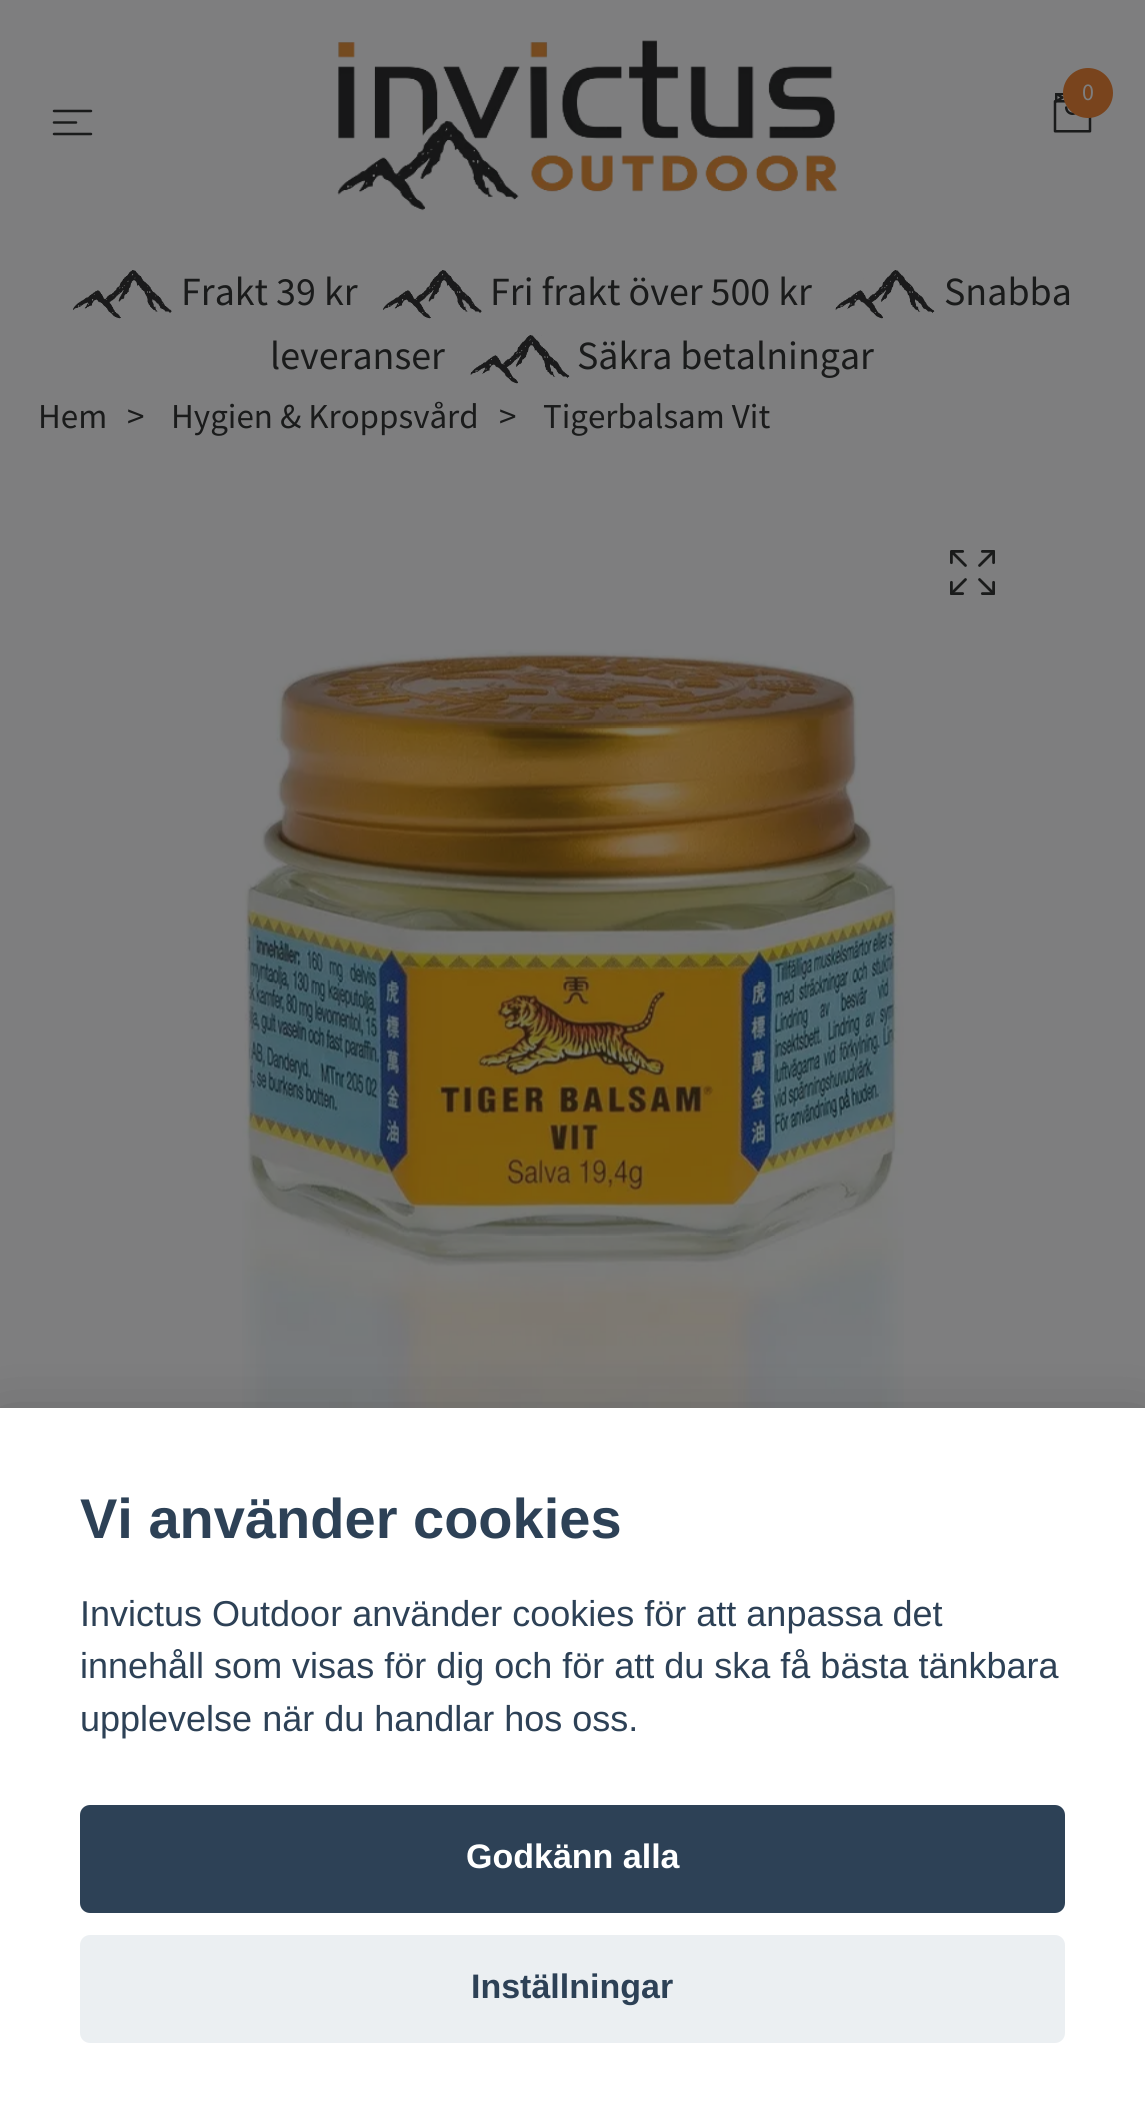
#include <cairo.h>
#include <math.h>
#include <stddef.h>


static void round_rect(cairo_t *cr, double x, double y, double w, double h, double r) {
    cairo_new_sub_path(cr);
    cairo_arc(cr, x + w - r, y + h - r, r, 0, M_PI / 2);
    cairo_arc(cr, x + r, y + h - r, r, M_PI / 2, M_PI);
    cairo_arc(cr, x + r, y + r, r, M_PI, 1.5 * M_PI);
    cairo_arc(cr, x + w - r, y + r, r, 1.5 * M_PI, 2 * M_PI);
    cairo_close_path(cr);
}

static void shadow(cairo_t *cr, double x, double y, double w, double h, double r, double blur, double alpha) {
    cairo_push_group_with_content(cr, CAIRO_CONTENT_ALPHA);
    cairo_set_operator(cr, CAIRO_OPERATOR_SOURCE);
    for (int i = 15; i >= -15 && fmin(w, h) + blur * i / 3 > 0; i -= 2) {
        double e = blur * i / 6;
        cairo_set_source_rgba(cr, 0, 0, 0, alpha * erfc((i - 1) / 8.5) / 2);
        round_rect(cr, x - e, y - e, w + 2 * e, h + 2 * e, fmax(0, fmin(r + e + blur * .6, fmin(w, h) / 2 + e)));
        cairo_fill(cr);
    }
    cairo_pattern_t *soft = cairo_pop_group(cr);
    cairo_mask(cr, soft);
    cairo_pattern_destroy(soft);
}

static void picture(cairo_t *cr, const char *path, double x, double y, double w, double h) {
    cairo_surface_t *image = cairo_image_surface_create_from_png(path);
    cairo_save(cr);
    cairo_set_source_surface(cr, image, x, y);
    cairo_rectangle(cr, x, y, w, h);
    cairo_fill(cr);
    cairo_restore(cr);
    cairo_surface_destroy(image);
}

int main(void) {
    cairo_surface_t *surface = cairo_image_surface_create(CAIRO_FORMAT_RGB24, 1145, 2122);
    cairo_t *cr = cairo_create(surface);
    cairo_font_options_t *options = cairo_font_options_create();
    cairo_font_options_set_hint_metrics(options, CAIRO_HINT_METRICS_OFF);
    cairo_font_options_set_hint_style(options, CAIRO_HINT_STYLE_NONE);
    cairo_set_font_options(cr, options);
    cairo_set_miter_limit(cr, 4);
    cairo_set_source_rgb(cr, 0.494, 0.494, 0.498);
    cairo_paint(cr);
    picture(cr, "img1.png", 337, 40, 500, 171);
    picture(cr, "img2.png", 1053, 93, 39, 40);
    cairo_set_source_rgb(cr, 0.475, 0.267, 0.114);
    cairo_arc(cr, 1088, 93, 25, 0, 2 * M_PI);
    cairo_fill(cr);
    cairo_select_font_face(cr, "Source Sans Pro", CAIRO_FONT_SLANT_NORMAL, CAIRO_FONT_WEIGHT_NORMAL);
    cairo_set_font_size(cr, 24);
    cairo_set_source_rgb(cr, 0.494, 0.494, 0.498);
    cairo_move_to(cr, 1082, 100);
    cairo_show_text(cr, "0");
    cairo_new_path(cr);
    cairo_move_to(cr, 54, 111);
    cairo_line_to(cr, 91, 111);
    cairo_move_to(cr, 54, 122.5);
    cairo_line_to(cr, 76, 122.5);
    cairo_move_to(cr, 54, 134);
    cairo_line_to(cr, 91, 134);
    cairo_set_source_rgb(cr, 0.102, 0.106, 0.106);
    cairo_set_line_width(cr, 2.5);
    cairo_set_line_cap(cr, CAIRO_LINE_CAP_ROUND);
    cairo_set_line_join(cr, CAIRO_LINE_JOIN_ROUND);
    cairo_stroke(cr);
    picture(cr, "img3.png", 73, 270, 99, 49);
    cairo_set_font_size(cr, 40);
    cairo_move_to(cr, 181, 305);
    cairo_show_text(cr, "Frakt 39 kr");
    picture(cr, "img3.png", 383, 270, 99, 49);
    cairo_move_to(cr, 490, 305);
    cairo_show_text(cr, "Fri frakt över 500 kr");
    picture(cr, "img4.png", 835, 270, 100, 49);
    cairo_move_to(cr, 944, 305);
    cairo_show_text(cr, "Snabba");
    cairo_move_to(cr, 270, 369);
    cairo_show_text(cr, "leveranser");
    picture(cr, "img5.png", 470, 335, 100, 49);
    cairo_move_to(cr, 577, 369);
    cairo_show_text(cr, "Säkra betalningar");
    cairo_set_font_size(cr, 35);
    cairo_move_to(cr, 38, 428);
    cairo_show_text(cr, "Hem");
    cairo_move_to(cr, 127, 428);
    cairo_show_text(cr, ">");
    cairo_move_to(cr, 171, 428);
    cairo_show_text(cr, "Hygien & Kroppsvård");
    cairo_move_to(cr, 499, 428);
    cairo_show_text(cr, ">");
    cairo_move_to(cr, 543, 428);
    cairo_show_text(cr, "Tigerbalsam Vit");
    picture(cr, "img6.png", 950, 550, 45, 45);
    picture(cr, "img7.png", 242, 649, 662, 759);
    cairo_set_source_rgb(cr, 0.008, 0.008, 0.012);
    shadow(cr, 0, 1433, 1145, 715, 0, 37.5, 0.28);
    cairo_set_source_rgb(cr, 1, 1, 1);
    cairo_rectangle(cr, 0, 1408, 1145, 714);
    cairo_fill(cr);
    cairo_select_font_face(cr, "Liberation Sans", CAIRO_FONT_SLANT_NORMAL, CAIRO_FONT_WEIGHT_BOLD);
    cairo_set_font_size(cr, 56);
    cairo_set_source_rgb(cr, 0.176, 0.255, 0.337);
    cairo_move_to(cr, 80, 1538);
    cairo_show_text(cr, "Vi använder cookies");
    cairo_select_font_face(cr, "Liberation Sans", CAIRO_FONT_SLANT_NORMAL, CAIRO_FONT_WEIGHT_NORMAL);
    cairo_set_font_size(cr, 36);
    cairo_move_to(cr, 80, 1626);
    cairo_show_text(cr, "Invictus Outdoor använder cookies för att anpassa det");
    cairo_move_to(cr, 80, 1678);
    cairo_show_text(cr, "innehåll som visas för dig och för att du ska få bästa tänkbara");
    cairo_move_to(cr, 80, 1731);
    cairo_show_text(cr, "upplevelse när du handlar hos oss.");
    round_rect(cr, 80, 1805, 985, 108, 10);
    cairo_fill(cr);
    cairo_select_font_face(cr, "Liberation Sans", CAIRO_FONT_SLANT_NORMAL, CAIRO_FONT_WEIGHT_BOLD);
    cairo_set_font_size(cr, 34);
    cairo_set_source_rgb(cr, 1, 1, 1);
    cairo_move_to(cr, 466, 1868);
    cairo_show_text(cr, "Godkänn alla");
    cairo_set_source_rgb(cr, 0.918, 0.937, 0.949);
    round_rect(cr, 80, 1935, 985, 108, 10);
    cairo_fill(cr);
    cairo_set_source_rgb(cr, 0.176, 0.255, 0.337);
    cairo_move_to(cr, 471, 1998);
    cairo_show_text(cr, "Inställningar");
    cairo_surface_write_to_png(surface, "page.png");
    cairo_font_options_destroy(options);
    cairo_destroy(cr);
    cairo_surface_destroy(surface);
    return 0;
}
